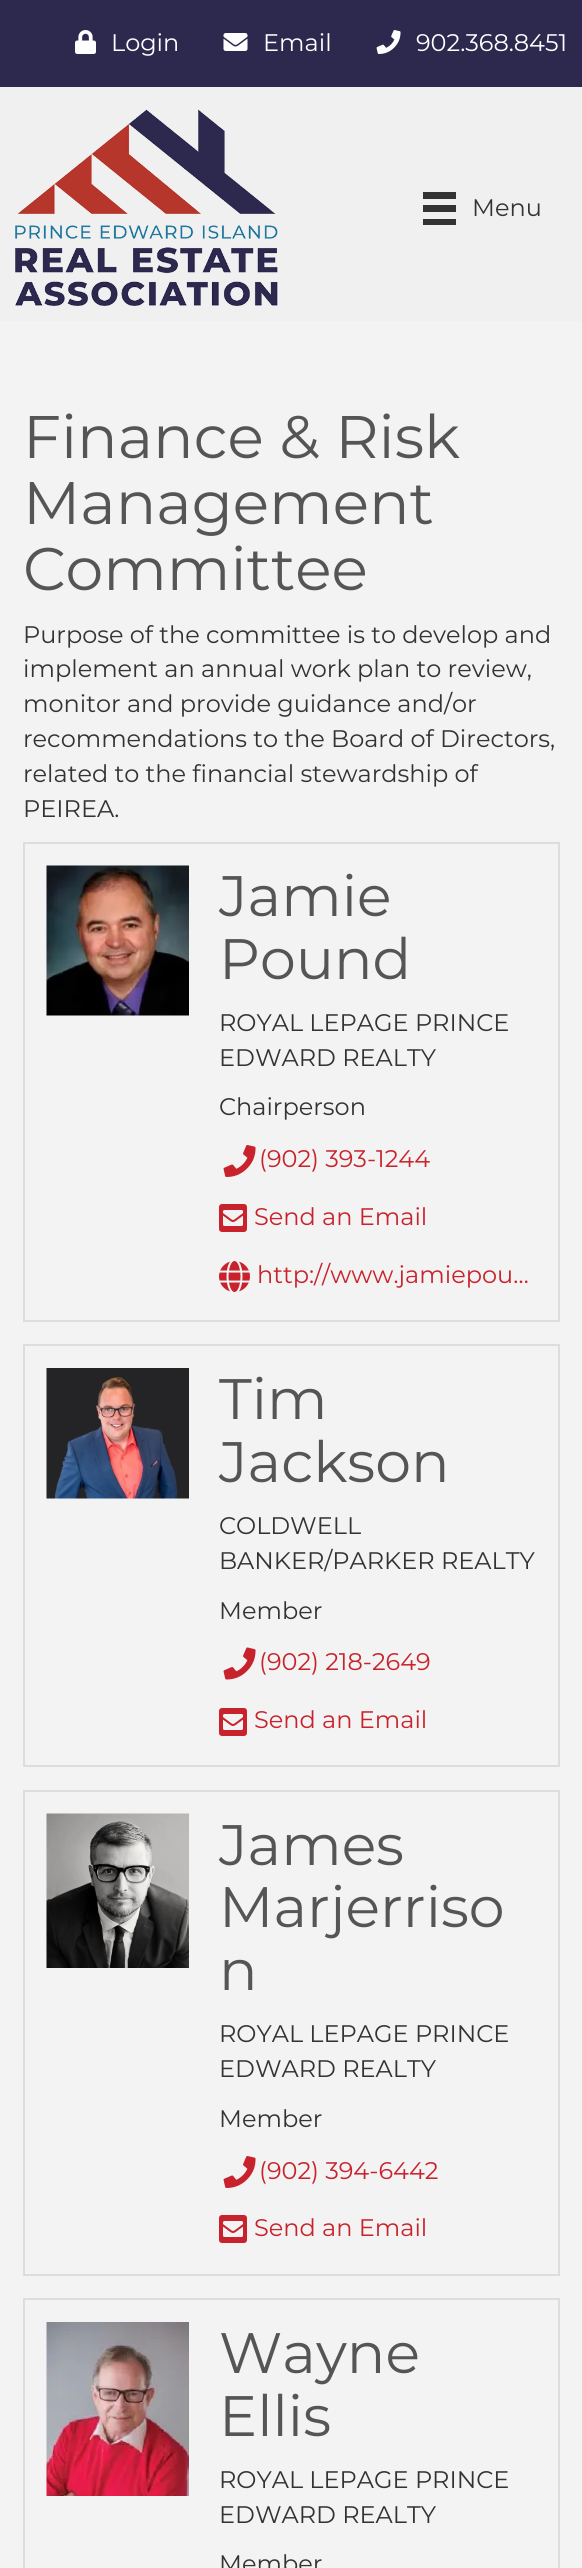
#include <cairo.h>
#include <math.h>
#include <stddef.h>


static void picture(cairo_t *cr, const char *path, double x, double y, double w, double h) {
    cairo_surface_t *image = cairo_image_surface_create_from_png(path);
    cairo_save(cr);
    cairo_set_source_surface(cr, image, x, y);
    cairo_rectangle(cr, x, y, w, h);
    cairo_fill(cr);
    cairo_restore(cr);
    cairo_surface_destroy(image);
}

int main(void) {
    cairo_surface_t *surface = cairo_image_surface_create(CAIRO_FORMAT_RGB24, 582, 2568);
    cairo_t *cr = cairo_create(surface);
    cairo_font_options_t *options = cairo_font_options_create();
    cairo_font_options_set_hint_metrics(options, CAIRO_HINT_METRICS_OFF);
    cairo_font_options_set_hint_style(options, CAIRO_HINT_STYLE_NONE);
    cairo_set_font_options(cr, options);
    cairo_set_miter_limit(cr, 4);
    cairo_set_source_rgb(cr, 0.176, 0.161, 0.306);
    cairo_paint(cr);
    picture(cr, "img1.png", 75, 30, 21, 24);
    cairo_select_font_face(cr, "Montserrat", CAIRO_FONT_SLANT_NORMAL, CAIRO_FONT_WEIGHT_NORMAL);
    cairo_set_font_size(cr, 24);
    cairo_set_source_rgb(cr, 1, 1, 1);
    cairo_move_to(cr, 111, 51);
    cairo_show_text(cr, "Login");
    picture(cr, "img2.png", 223, 33, 25, 18);
    cairo_move_to(cr, 263, 51);
    cairo_show_text(cr, "Email");
    picture(cr, "img3.png", 376, 30, 25, 24);
    cairo_move_to(cr, 416, 51);
    cairo_show_text(cr, "902.368.8451");
    cairo_set_source_rgb(cr, 0.941, 0.941, 0.941);
    cairo_rectangle(cr, 0, 87, 582, 234);
    cairo_fill(cr);
    picture(cr, "img4.png", 15, 109, 263, 197);
    cairo_set_source_rgb(cr, 0.2, 0.2, 0.2);
    cairo_rectangle(cr, 423, 192, 33, 7);
    cairo_fill(cr);
    cairo_rectangle(cr, 423, 205, 33, 7);
    cairo_fill(cr);
    cairo_rectangle(cr, 423, 219, 33, 6);
    cairo_fill(cr);
    cairo_move_to(cr, 472, 216);
    cairo_show_text(cr, "Menu");
    cairo_set_source_rgb(cr, 0.953, 0.953, 0.953);
    cairo_rectangle(cr, 0, 321, 582, 2247);
    cairo_fill(cr);
    cairo_set_font_size(cr, 60);
    cairo_set_source_rgb(cr, 0.333, 0.333, 0.333);
    cairo_move_to(cr, 23, 458);
    cairo_show_text(cr, "Finance & Risk");
    cairo_move_to(cr, 23, 524);
    cairo_show_text(cr, "Management");
    cairo_move_to(cr, 23, 590);
    cairo_show_text(cr, "Committee");
    cairo_set_font_size(cr, 24);
    cairo_set_source_rgb(cr, 0.2, 0.2, 0.2);
    cairo_move_to(cr, 23, 643);
    cairo_show_text(cr, "Purpose of the committee is to develop and");
    cairo_move_to(cr, 23, 677);
    cairo_show_text(cr, "implement an annual work plan to review,");
    cairo_move_to(cr, 23, 712);
    cairo_show_text(cr, "monitor and provide guidance and/or");
    cairo_move_to(cr, 23, 747);
    cairo_show_text(cr, "recommendations to the Board of Directors,");
    cairo_move_to(cr, 23, 782);
    cairo_show_text(cr, "related to the financial stewardship of");
    cairo_move_to(cr, 23, 817);
    cairo_show_text(cr, "PEIREA.");
    cairo_rectangle(cr, 24, 843, 535, 478);
    cairo_set_source_rgb(cr, 0.867, 0.867, 0.867);
    cairo_stroke(cr);
    picture(cr, "img5.png", 46, 865, 143, 151);
    cairo_set_font_size(cr, 57);
    cairo_set_source_rgb(cr, 0.333, 0.333, 0.333);
    cairo_move_to(cr, 219, 916);
    cairo_show_text(cr, "Jamie");
    cairo_move_to(cr, 219, 979);
    cairo_show_text(cr, "Pound");
    cairo_set_font_size(cr, 24);
    cairo_set_source_rgb(cr, 0.2, 0.2, 0.2);
    cairo_move_to(cr, 219, 1031);
    cairo_show_text(cr, "ROYAL LEPAGE PRINCE");
    cairo_move_to(cr, 219, 1066);
    cairo_show_text(cr, "EDWARD REALTY");
    cairo_move_to(cr, 219, 1115);
    cairo_show_text(cr, "Chairperson");
    picture(cr, "img6.png", 223, 1145, 33, 32);
    cairo_set_source_rgb(cr, 0.784, 0.137, 0.173);
    cairo_move_to(cr, 259, 1167);
    cairo_show_text(cr, "(902) 393-1244");
    picture(cr, "img7.png", 219, 1204, 28, 28);
    cairo_move_to(cr, 254, 1225);
    cairo_show_text(cr, "Send an Email");
    picture(cr, "img8.png", 219, 1261, 31, 31);
    cairo_move_to(cr, 257, 1283);
    cairo_show_text(cr, "http://www.jamiepou…");
    cairo_rectangle(cr, 24, 1345, 535, 421);
    cairo_set_source_rgb(cr, 0.867, 0.867, 0.867);
    cairo_stroke(cr);
    picture(cr, "img9.png", 46, 1368, 143, 131);
    cairo_set_font_size(cr, 57);
    cairo_set_source_rgb(cr, 0.333, 0.333, 0.333);
    cairo_move_to(cr, 219, 1419);
    cairo_show_text(cr, "Tim");
    cairo_move_to(cr, 219, 1482);
    cairo_show_text(cr, "Jackson");
    cairo_set_font_size(cr, 24);
    cairo_set_source_rgb(cr, 0.2, 0.2, 0.2);
    cairo_move_to(cr, 219, 1534);
    cairo_show_text(cr, "COLDWELL");
    cairo_move_to(cr, 219, 1569);
    cairo_show_text(cr, "BANKER/PARKER REALTY");
    cairo_move_to(cr, 219, 1619);
    cairo_show_text(cr, "Member");
    picture(cr, "img10.png", 223, 1647, 33, 33);
    cairo_set_source_rgb(cr, 0.784, 0.137, 0.173);
    cairo_move_to(cr, 259, 1670);
    cairo_show_text(cr, "(902) 218-2649");
    picture(cr, "img7.png", 219, 1708, 28, 28);
    cairo_move_to(cr, 254, 1728);
    cairo_show_text(cr, "Send an Email");
    cairo_rectangle(cr, 24, 1791, 535, 484);
    cairo_set_source_rgb(cr, 0.867, 0.867, 0.867);
    cairo_stroke(cr);
    picture(cr, "img11.png", 46, 1813, 143, 155);
    cairo_set_font_size(cr, 57);
    cairo_set_source_rgb(cr, 0.333, 0.333, 0.333);
    cairo_move_to(cr, 219, 1865);
    cairo_show_text(cr, "James");
    cairo_move_to(cr, 219, 1927);
    cairo_show_text(cr, "Marjerriso");
    cairo_move_to(cr, 219, 1990);
    cairo_show_text(cr, "n");
    cairo_set_font_size(cr, 24);
    cairo_set_source_rgb(cr, 0.2, 0.2, 0.2);
    cairo_move_to(cr, 219, 2042);
    cairo_show_text(cr, "ROYAL LEPAGE PRINCE");
    cairo_move_to(cr, 219, 2077);
    cairo_show_text(cr, "EDWARD REALTY");
    cairo_move_to(cr, 219, 2127);
    cairo_show_text(cr, "Member");
    picture(cr, "img6.png", 223, 2156, 33, 32);
    cairo_set_source_rgb(cr, 0.784, 0.137, 0.173);
    cairo_move_to(cr, 259, 2179);
    cairo_show_text(cr, "(902) 394-6442");
    picture(cr, "img7.png", 219, 2215, 28, 28);
    cairo_move_to(cr, 254, 2236);
    cairo_show_text(cr, "Send an Email");
    cairo_rectangle(cr, 24, 2299, 535, 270);
    cairo_set_source_rgb(cr, 0.867, 0.867, 0.867);
    cairo_stroke(cr);
    picture(cr, "img12.png", 46, 2322, 143, 174);
    cairo_set_font_size(cr, 57);
    cairo_set_source_rgb(cr, 0.333, 0.333, 0.333);
    cairo_move_to(cr, 219, 2373);
    cairo_show_text(cr, "Wayne");
    cairo_move_to(cr, 219, 2436);
    cairo_show_text(cr, "Ellis");
    cairo_set_font_size(cr, 24);
    cairo_set_source_rgb(cr, 0.2, 0.2, 0.2);
    cairo_move_to(cr, 219, 2488);
    cairo_show_text(cr, "ROYAL LEPAGE PRINCE");
    cairo_move_to(cr, 219, 2523);
    cairo_show_text(cr, "EDWARD REALTY");
    cairo_move_to(cr, 219, 2572);
    cairo_show_text(cr, "Member");
    cairo_surface_write_to_png(surface, "page.png");
    cairo_font_options_destroy(options);
    cairo_destroy(cr);
    cairo_surface_destroy(surface);
    return 0;
}
